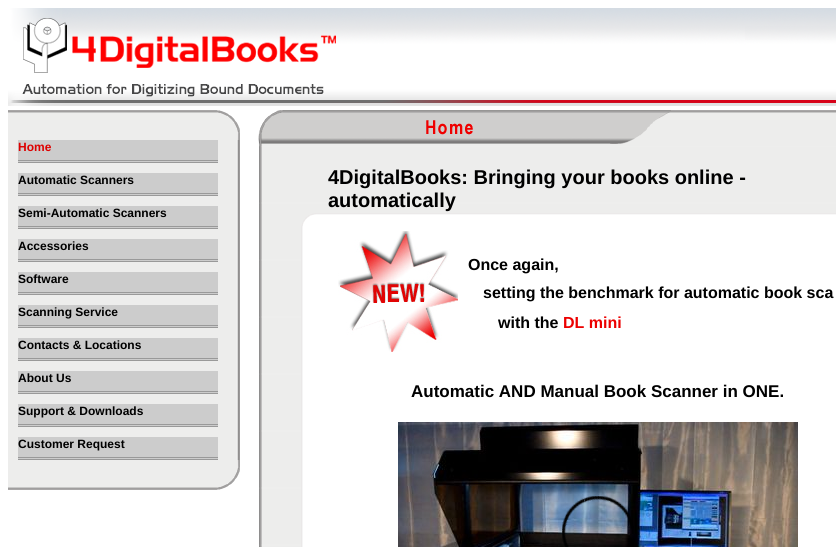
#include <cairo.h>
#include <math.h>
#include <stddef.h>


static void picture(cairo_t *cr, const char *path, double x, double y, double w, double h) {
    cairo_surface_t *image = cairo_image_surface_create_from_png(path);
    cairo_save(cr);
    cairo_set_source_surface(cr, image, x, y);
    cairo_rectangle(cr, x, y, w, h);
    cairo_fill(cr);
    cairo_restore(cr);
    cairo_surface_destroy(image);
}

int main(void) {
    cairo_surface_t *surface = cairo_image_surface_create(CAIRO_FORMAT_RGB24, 836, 547);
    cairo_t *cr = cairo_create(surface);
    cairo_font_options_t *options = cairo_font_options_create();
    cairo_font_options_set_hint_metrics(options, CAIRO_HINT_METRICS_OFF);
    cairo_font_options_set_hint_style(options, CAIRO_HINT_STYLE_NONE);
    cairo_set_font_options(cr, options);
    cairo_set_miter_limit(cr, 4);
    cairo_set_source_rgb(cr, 1, 1, 1);
    cairo_paint(cr);
    picture(cr, "img1.png", 8, 8, 828, 98);
    picture(cr, "img2.png", 8, 110, 232, 30);
    picture(cr, "img3.png", 8, 140, 232, 320);
    picture(cr, "img4.png", 238, 140, 2, 320);
    cairo_set_source_rgb(cr, 0.8, 0.8, 0.8);
    cairo_rectangle(cr, 18, 140, 200, 22);
    cairo_fill(cr);
    cairo_set_source_rgb(cr, 0.6, 0.6, 0.6);
    cairo_rectangle(cr, 18, 160, 200, 1);
    cairo_fill(cr);
    cairo_rectangle(cr, 18, 162, 200, 1);
    cairo_fill(cr);
    cairo_select_font_face(cr, "Liberation Sans", CAIRO_FONT_SLANT_NORMAL, CAIRO_FONT_WEIGHT_BOLD);
    cairo_set_font_size(cr, 12);
    cairo_set_source_rgb(cr, 0.867, 0, 0);
    cairo_move_to(cr, 18, 151);
    cairo_show_text(cr, "Home");
    cairo_set_source_rgb(cr, 0.8, 0.8, 0.8);
    cairo_rectangle(cr, 18, 173, 200, 22);
    cairo_fill(cr);
    cairo_set_source_rgb(cr, 0.6, 0.6, 0.6);
    cairo_rectangle(cr, 18, 193, 200, 1);
    cairo_fill(cr);
    cairo_rectangle(cr, 18, 195, 200, 1);
    cairo_fill(cr);
    cairo_set_source_rgb(cr, 0, 0, 0);
    cairo_move_to(cr, 18, 184);
    cairo_show_text(cr, "Automatic Scanners");
    cairo_set_source_rgb(cr, 0.8, 0.8, 0.8);
    cairo_rectangle(cr, 18, 206, 200, 22);
    cairo_fill(cr);
    cairo_set_source_rgb(cr, 0.6, 0.6, 0.6);
    cairo_rectangle(cr, 18, 226, 200, 1);
    cairo_fill(cr);
    cairo_rectangle(cr, 18, 228, 200, 1);
    cairo_fill(cr);
    cairo_set_source_rgb(cr, 0, 0, 0);
    cairo_move_to(cr, 18, 217);
    cairo_show_text(cr, "Semi-Automatic Scanners");
    cairo_set_source_rgb(cr, 0.8, 0.8, 0.8);
    cairo_rectangle(cr, 18, 239, 200, 22);
    cairo_fill(cr);
    cairo_set_source_rgb(cr, 0.6, 0.6, 0.6);
    cairo_rectangle(cr, 18, 259, 200, 1);
    cairo_fill(cr);
    cairo_rectangle(cr, 18, 261, 200, 1);
    cairo_fill(cr);
    cairo_set_source_rgb(cr, 0, 0, 0);
    cairo_move_to(cr, 18, 250);
    cairo_show_text(cr, "Accessories");
    cairo_set_source_rgb(cr, 0.8, 0.8, 0.8);
    cairo_rectangle(cr, 18, 272, 200, 22);
    cairo_fill(cr);
    cairo_set_source_rgb(cr, 0.6, 0.6, 0.6);
    cairo_rectangle(cr, 18, 292, 200, 1);
    cairo_fill(cr);
    cairo_rectangle(cr, 18, 294, 200, 1);
    cairo_fill(cr);
    cairo_set_source_rgb(cr, 0, 0, 0);
    cairo_move_to(cr, 18, 283);
    cairo_show_text(cr, "Software");
    cairo_set_source_rgb(cr, 0.8, 0.8, 0.8);
    cairo_rectangle(cr, 18, 305, 200, 22);
    cairo_fill(cr);
    cairo_set_source_rgb(cr, 0.6, 0.6, 0.6);
    cairo_rectangle(cr, 18, 325, 200, 1);
    cairo_fill(cr);
    cairo_rectangle(cr, 18, 327, 200, 1);
    cairo_fill(cr);
    cairo_set_source_rgb(cr, 0, 0, 0);
    cairo_move_to(cr, 18, 316);
    cairo_show_text(cr, "Scanning Service");
    cairo_set_source_rgb(cr, 0.8, 0.8, 0.8);
    cairo_rectangle(cr, 18, 338, 200, 22);
    cairo_fill(cr);
    cairo_set_source_rgb(cr, 0.6, 0.6, 0.6);
    cairo_rectangle(cr, 18, 358, 200, 1);
    cairo_fill(cr);
    cairo_rectangle(cr, 18, 360, 200, 1);
    cairo_fill(cr);
    cairo_set_source_rgb(cr, 0, 0, 0);
    cairo_move_to(cr, 18, 349);
    cairo_show_text(cr, "Contacts & Locations");
    cairo_set_source_rgb(cr, 0.8, 0.8, 0.8);
    cairo_rectangle(cr, 18, 371, 200, 22);
    cairo_fill(cr);
    cairo_set_source_rgb(cr, 0.6, 0.6, 0.6);
    cairo_rectangle(cr, 18, 391, 200, 1);
    cairo_fill(cr);
    cairo_rectangle(cr, 18, 393, 200, 1);
    cairo_fill(cr);
    cairo_set_source_rgb(cr, 0, 0, 0);
    cairo_move_to(cr, 18, 382);
    cairo_show_text(cr, "About Us");
    cairo_set_source_rgb(cr, 0.8, 0.8, 0.8);
    cairo_rectangle(cr, 18, 404, 200, 22);
    cairo_fill(cr);
    cairo_set_source_rgb(cr, 0.6, 0.6, 0.6);
    cairo_rectangle(cr, 18, 424, 200, 1);
    cairo_fill(cr);
    cairo_rectangle(cr, 18, 426, 200, 1);
    cairo_fill(cr);
    cairo_set_source_rgb(cr, 0, 0, 0);
    cairo_move_to(cr, 18, 415);
    cairo_show_text(cr, "Support & Downloads");
    cairo_set_source_rgb(cr, 0.8, 0.8, 0.8);
    cairo_rectangle(cr, 18, 437, 200, 22);
    cairo_fill(cr);
    cairo_set_source_rgb(cr, 0.6, 0.6, 0.6);
    cairo_rectangle(cr, 18, 457, 200, 1);
    cairo_fill(cr);
    cairo_rectangle(cr, 18, 459, 200, 1);
    cairo_fill(cr);
    cairo_set_source_rgb(cr, 0, 0, 0);
    cairo_move_to(cr, 18, 448);
    cairo_show_text(cr, "Customer Request");
    picture(cr, "img5.png", 8, 460, 232, 30);
    picture(cr, "img6.png", 258, 110, 578, 36);
    picture(cr, "img7.png", 259, 146, 577, 401);
    cairo_set_font_size(cr, 20);
    cairo_move_to(cr, 328, 184);
    cairo_show_text(cr, "4DigitalBooks: Bringing your books online -");
    cairo_move_to(cr, 328, 207);
    cairo_show_text(cr, "automatically");
    picture(cr, "img8.png", 301, 213, 535, 18);
    picture(cr, "img9.png", 301, 231, 535, 316);
    picture(cr, "img10.png", 338, 231, 120, 121);
    cairo_set_font_size(cr, 16);
    cairo_move_to(cr, 468, 270);
    cairo_show_text(cr, "Once again,");
    cairo_move_to(cr, 483, 298);
    cairo_show_text(cr, "setting the benchmark for automatic book sca");
    cairo_move_to(cr, 498, 328);
    cairo_show_text(cr, "with the");
    cairo_set_source_rgb(cr, 0.925, 0, 0);
    cairo_move_to(cr, 563, 328);
    cairo_show_text(cr, "DL mini");
    cairo_set_font_size(cr, 17);
    cairo_set_source_rgb(cr, 0, 0, 0);
    cairo_move_to(cr, 411, 397);
    cairo_show_text(cr, "Automatic AND Manual Book Scanner in ONE.");
    picture(cr, "img11.png", 398, 422, 400, 125);
    cairo_surface_write_to_png(surface, "page.png");
    cairo_font_options_destroy(options);
    cairo_destroy(cr);
    cairo_surface_destroy(surface);
    return 0;
}
